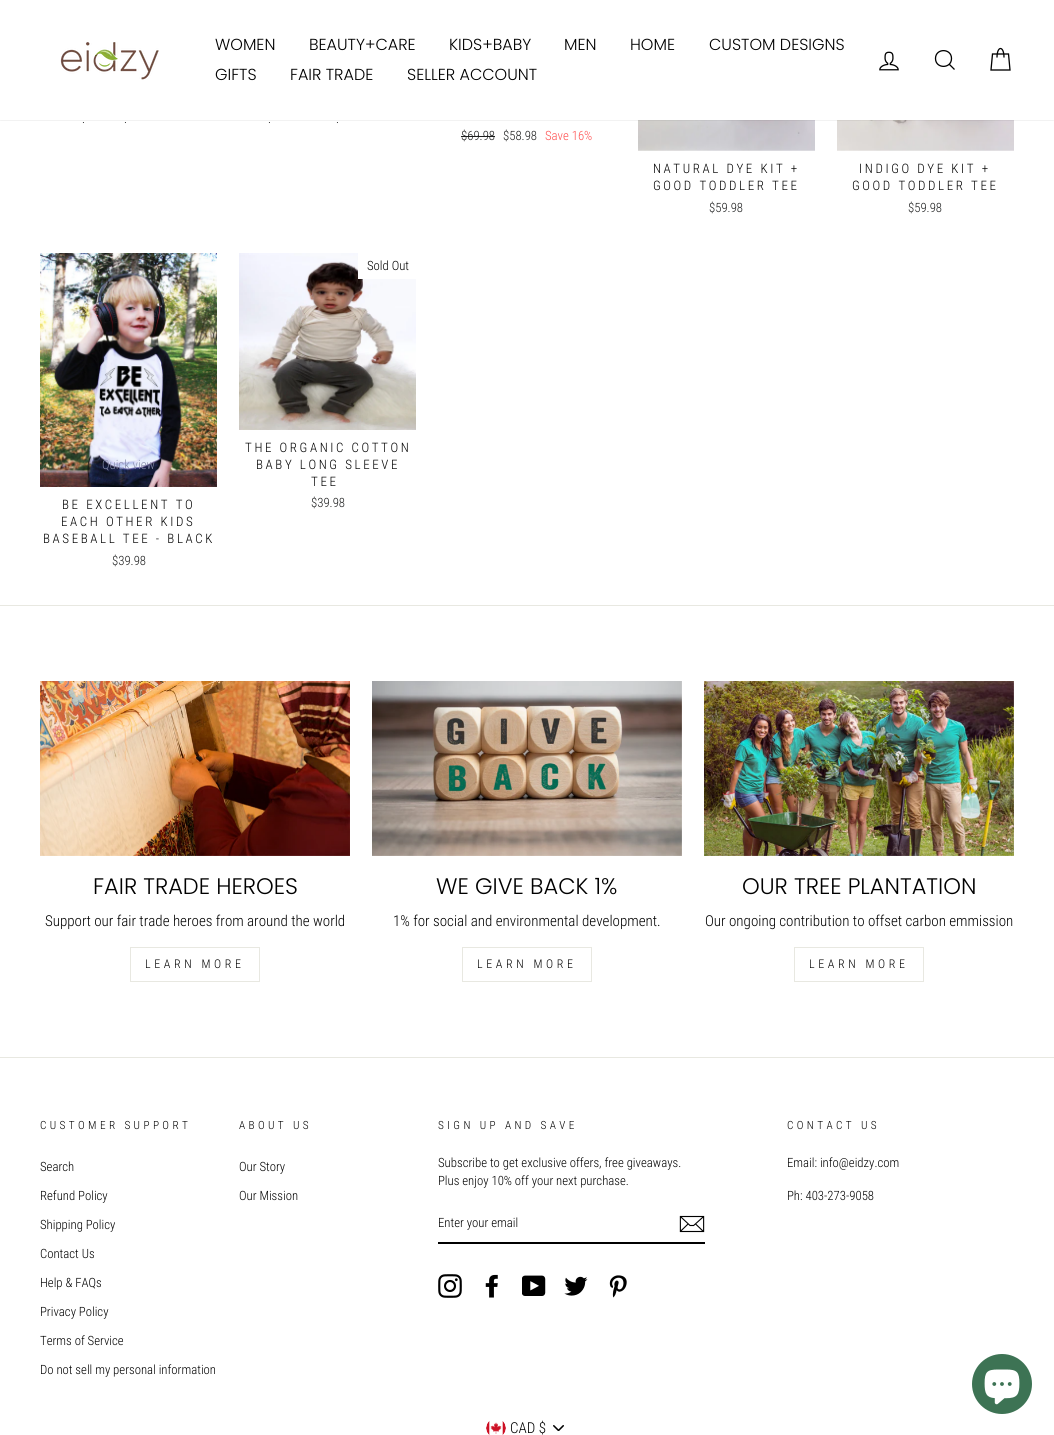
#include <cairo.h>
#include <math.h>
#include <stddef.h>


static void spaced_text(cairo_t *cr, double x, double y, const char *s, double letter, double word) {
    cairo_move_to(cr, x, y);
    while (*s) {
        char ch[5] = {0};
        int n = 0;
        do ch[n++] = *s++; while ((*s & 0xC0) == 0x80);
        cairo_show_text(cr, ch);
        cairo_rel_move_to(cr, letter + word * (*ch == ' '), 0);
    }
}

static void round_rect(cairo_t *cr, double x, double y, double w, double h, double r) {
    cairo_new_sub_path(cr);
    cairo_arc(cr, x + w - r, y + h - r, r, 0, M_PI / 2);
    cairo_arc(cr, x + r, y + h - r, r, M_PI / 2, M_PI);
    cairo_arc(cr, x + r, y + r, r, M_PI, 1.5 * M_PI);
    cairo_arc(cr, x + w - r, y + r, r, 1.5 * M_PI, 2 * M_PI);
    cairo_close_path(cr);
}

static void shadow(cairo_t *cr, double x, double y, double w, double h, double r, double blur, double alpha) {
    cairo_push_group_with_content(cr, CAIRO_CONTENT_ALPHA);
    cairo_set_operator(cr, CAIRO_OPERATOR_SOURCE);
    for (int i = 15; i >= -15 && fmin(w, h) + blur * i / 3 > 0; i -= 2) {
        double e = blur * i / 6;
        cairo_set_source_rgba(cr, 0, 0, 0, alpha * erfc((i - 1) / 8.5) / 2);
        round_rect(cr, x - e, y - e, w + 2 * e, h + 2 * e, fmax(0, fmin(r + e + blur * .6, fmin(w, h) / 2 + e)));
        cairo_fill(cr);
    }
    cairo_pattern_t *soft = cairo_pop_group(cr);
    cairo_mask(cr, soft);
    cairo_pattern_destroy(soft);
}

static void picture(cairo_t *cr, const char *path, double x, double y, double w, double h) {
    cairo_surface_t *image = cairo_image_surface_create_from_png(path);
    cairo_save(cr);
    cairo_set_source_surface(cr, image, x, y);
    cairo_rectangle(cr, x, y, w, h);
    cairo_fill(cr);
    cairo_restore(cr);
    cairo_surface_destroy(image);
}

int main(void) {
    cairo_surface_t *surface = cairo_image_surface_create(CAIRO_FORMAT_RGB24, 1054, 1435);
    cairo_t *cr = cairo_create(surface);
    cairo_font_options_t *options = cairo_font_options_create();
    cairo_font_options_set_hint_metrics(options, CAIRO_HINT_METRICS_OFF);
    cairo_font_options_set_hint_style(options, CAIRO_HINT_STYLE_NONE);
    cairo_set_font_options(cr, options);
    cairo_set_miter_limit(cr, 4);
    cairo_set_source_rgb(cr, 1, 1, 1);
    cairo_paint(cr);
    picture(cr, "img3.png", 638, 120, 177, 31);
    picture(cr, "img4.png", 837, 120, 177, 31);
    cairo_set_source_rgb(cr, 0, 0, 0);
    shadow(cr, 0, 0, 1054, 120, 0, 0.5, 0.2);
    cairo_set_source_rgb(cr, 1, 1, 1);
    cairo_rectangle(cr, 0, 0, 1054, 120);
    cairo_fill(cr);
    picture(cr, "img1.png", 60, 42, 99, 38);
    cairo_select_font_face(cr, "Poppins Light", CAIRO_FONT_SLANT_NORMAL, CAIRO_FONT_WEIGHT_NORMAL);
    cairo_set_font_size(cr, 16);
    cairo_set_source_rgb(cr, 0, 0, 0);
    cairo_move_to(cr, 215, 50);
    cairo_show_text(cr, "WOMEN");
    cairo_move_to(cr, 309, 50);
    cairo_show_text(cr, "BEAUTY+CARE");
    cairo_move_to(cr, 449, 50);
    cairo_show_text(cr, "KIDS+BABY");
    cairo_move_to(cr, 564, 50);
    cairo_show_text(cr, "MEN");
    cairo_move_to(cr, 630, 50);
    cairo_show_text(cr, "HOME");
    cairo_move_to(cr, 709, 50);
    cairo_show_text(cr, "CUSTOM DESIGNS");
    cairo_move_to(cr, 215, 80);
    cairo_show_text(cr, "GIFTS");
    cairo_move_to(cr, 290, 80);
    cairo_show_text(cr, "FAIR TRADE");
    cairo_move_to(cr, 407, 80);
    cairo_show_text(cr, "SELLER ACCOUNT");
    picture(cr, "img2.png", 879, 51, 20, 20);
    cairo_new_path(cr);
    cairo_move_to(cr, 951.5, 58.5);
    cairo_curve_to(cr, 951.5, 69, 935.5, 69, 935.5, 58.5);
    cairo_curve_to(cr, 935.5, 48, 951.5, 48, 951.5, 58.5);
    cairo_close_path(cr);
    cairo_move_to(cr, 954.5, 69.5);
    cairo_line_to(cr, 949.5, 64.5);
    cairo_set_line_width(cr, 1.3);
    cairo_stroke(cr);
    cairo_new_path(cr);
    cairo_move_to(cr, 997, 57.5);
    cairo_curve_to(cr, 997, 45.5, 1004, 45.5, 1004, 57.5);
    cairo_move_to(cr, 992.5, 54);
    cairo_line_to(cr, 1008.5, 54);
    cairo_line_to(cr, 1010, 70);
    cairo_line_to(cr, 991, 70);
    cairo_close_path(cr);
    cairo_stroke(cr);
    cairo_select_font_face(cr, "Roboto Condensed Light", CAIRO_FONT_SLANT_NORMAL, CAIRO_FONT_WEIGHT_NORMAL);
    cairo_set_font_size(cr, 12.75);
    cairo_set_source_rgb(cr, 0.11, 0.114, 0.114);
    cairo_move_to(cr, 82, 123);
    cairo_show_text(cr, ".");
    cairo_move_to(cr, 124, 123);
    cairo_show_text(cr, ".");
    cairo_move_to(cr, 268, 123);
    cairo_show_text(cr, ".");
    cairo_move_to(cr, 336, 123);
    cairo_show_text(cr, ".");
    cairo_move_to(cr, 461, 140);
    cairo_show_text(cr, "$69.98");
    cairo_rectangle(cr, 461, 136, 34, 1);
    cairo_fill(cr);
    cairo_move_to(cr, 503, 140);
    cairo_show_text(cr, "$58.98");
    cairo_set_source_rgb(cr, 1, 0.306, 0.306);
    cairo_move_to(cr, 545, 140);
    cairo_show_text(cr, "Save 16%");
    cairo_set_font_size(cr, 13);
    cairo_set_source_rgb(cr, 0, 0, 0);
    spaced_text(cr, 653, 173, "NATURAL DYE KIT +", 2.6, 0);
    spaced_text(cr, 653, 190, "GOOD TODDLER TEE", 2.6, 0);
    cairo_set_font_size(cr, 12.75);
    cairo_set_source_rgb(cr, 0.11, 0.114, 0.114);
    cairo_move_to(cr, 709, 212);
    cairo_show_text(cr, "$59.98");
    cairo_set_font_size(cr, 13);
    cairo_set_source_rgb(cr, 0, 0, 0);
    spaced_text(cr, 859, 173, "INDIGO DYE KIT +", 2.6, 0);
    spaced_text(cr, 852, 190, "GOOD TODDLER TEE", 2.6, 0);
    cairo_set_font_size(cr, 12.75);
    cairo_set_source_rgb(cr, 0.11, 0.114, 0.114);
    cairo_move_to(cr, 908, 212);
    cairo_show_text(cr, "$59.98");
    picture(cr, "img5.png", 40, 253, 177, 234);
    cairo_set_source_rgb(cr, 0.525, 0.545, 0.663);
    cairo_move_to(cr, 102, 469);
    cairo_show_text(cr, "Quick view");
    cairo_set_font_size(cr, 13);
    cairo_set_source_rgb(cr, 0, 0, 0);
    spaced_text(cr, 62, 509, "BE EXCELLENT TO", 2.6, 0);
    spaced_text(cr, 61, 526, "EACH OTHER KIDS", 2.6, 0);
    spaced_text(cr, 43, 543, "BASEBALL TEE - BLACK", 2.6, 0);
    cairo_set_font_size(cr, 12.75);
    cairo_set_source_rgb(cr, 0.11, 0.114, 0.114);
    cairo_move_to(cr, 112, 565);
    cairo_show_text(cr, "$39.98");
    picture(cr, "img6.png", 239, 253, 177, 177);
    cairo_set_source_rgb(cr, 1, 1, 1);
    cairo_rectangle(cr, 358, 253, 58, 26);
    cairo_fill(cr);
    cairo_set_source_rgb(cr, 0, 0, 0);
    cairo_move_to(cr, 367, 270);
    cairo_show_text(cr, "Sold Out");
    cairo_set_font_size(cr, 13);
    spaced_text(cr, 245, 452, "THE ORGANIC COTTON", 2.6, 0);
    spaced_text(cr, 256, 469, "BABY LONG SLEEVE", 2.6, 0);
    spaced_text(cr, 311, 486, "TEE", 2.6, 0);
    cairo_set_font_size(cr, 12.75);
    cairo_set_source_rgb(cr, 0.11, 0.114, 0.114);
    cairo_move_to(cr, 311, 507);
    cairo_show_text(cr, "$39.98");
    cairo_set_source_rgb(cr, 0.91, 0.91, 0.882);
    cairo_rectangle(cr, 0, 605, 1054, 1);
    cairo_fill(cr);
    picture(cr, "img7.png", 40, 681, 310, 175);
    cairo_select_font_face(cr, "Poppins Light", CAIRO_FONT_SLANT_NORMAL, CAIRO_FONT_WEIGHT_NORMAL);
    cairo_set_font_size(cr, 22.5);
    cairo_set_source_rgb(cr, 0, 0, 0);
    cairo_move_to(cr, 93, 894);
    cairo_show_text(cr, "FAIR TRADE HEROES");
    cairo_select_font_face(cr, "Roboto Condensed Light", CAIRO_FONT_SLANT_NORMAL, CAIRO_FONT_WEIGHT_NORMAL);
    cairo_set_font_size(cr, 15);
    cairo_move_to(cr, 45, 926);
    cairo_show_text(cr, "Support our fair trade heroes from around the world");
    cairo_rectangle(cr, 130.5, 947.5, 129, 34);
    cairo_set_source_rgb(cr, 0.91, 0.91, 0.882);
    cairo_set_line_width(cr, 1);
    cairo_stroke(cr);
    cairo_set_font_size(cr, 12);
    cairo_set_source_rgb(cr, 0, 0, 0);
    spaced_text(cr, 145, 968, "LEARN MORE", 3.6, 0);
    picture(cr, "img8.png", 372, 681, 310, 175);
    cairo_select_font_face(cr, "Poppins Light", CAIRO_FONT_SLANT_NORMAL, CAIRO_FONT_WEIGHT_NORMAL);
    cairo_set_font_size(cr, 22.5);
    cairo_move_to(cr, 436, 894);
    cairo_show_text(cr, "WE GIVE BACK 1%");
    cairo_select_font_face(cr, "Roboto Condensed Light", CAIRO_FONT_SLANT_NORMAL, CAIRO_FONT_WEIGHT_NORMAL);
    cairo_set_font_size(cr, 15);
    cairo_move_to(cr, 393, 926);
    cairo_show_text(cr, "1% for social and environmental development.");
    cairo_rectangle(cr, 462.5, 947.5, 129, 34);
    cairo_set_source_rgb(cr, 0.91, 0.91, 0.882);
    cairo_stroke(cr);
    cairo_set_font_size(cr, 12);
    cairo_set_source_rgb(cr, 0, 0, 0);
    spaced_text(cr, 477, 968, "LEARN MORE", 3.6, 0);
    picture(cr, "img9.png", 704, 681, 310, 175);
    cairo_select_font_face(cr, "Poppins Light", CAIRO_FONT_SLANT_NORMAL, CAIRO_FONT_WEIGHT_NORMAL);
    cairo_set_font_size(cr, 22.5);
    cairo_move_to(cr, 742, 894);
    cairo_show_text(cr, "OUR TREE PLANTATION");
    cairo_select_font_face(cr, "Roboto Condensed Light", CAIRO_FONT_SLANT_NORMAL, CAIRO_FONT_WEIGHT_NORMAL);
    cairo_set_font_size(cr, 15);
    cairo_move_to(cr, 705, 926);
    cairo_show_text(cr, "Our ongoing contribution to offset carbon emmission");
    cairo_rectangle(cr, 794.5, 947.5, 129, 34);
    cairo_set_source_rgb(cr, 0.91, 0.91, 0.882);
    cairo_stroke(cr);
    cairo_set_font_size(cr, 12);
    cairo_set_source_rgb(cr, 0, 0, 0);
    spaced_text(cr, 809, 968, "LEARN MORE", 3.6, 0);
    cairo_set_source_rgb(cr, 0.91, 0.91, 0.882);
    cairo_rectangle(cr, 0, 1057, 1054, 1);
    cairo_fill(cr);
    cairo_set_font_size(cr, 11.25);
    cairo_set_source_rgb(cr, 0, 0, 0);
    spaced_text(cr, 40, 1129, "CUSTOMER SUPPORT", 3.4, 0);
    cairo_set_font_size(cr, 12.75);
    cairo_move_to(cr, 40, 1171);
    cairo_show_text(cr, "Search");
    cairo_move_to(cr, 40, 1200);
    cairo_show_text(cr, "Refund Policy");
    cairo_move_to(cr, 40, 1229);
    cairo_show_text(cr, "Shipping Policy");
    cairo_move_to(cr, 40, 1258);
    cairo_show_text(cr, "Contact Us");
    cairo_move_to(cr, 40, 1287);
    cairo_show_text(cr, "Help & FAQs");
    cairo_move_to(cr, 40, 1316);
    cairo_show_text(cr, "Privacy Policy");
    cairo_move_to(cr, 40, 1345);
    cairo_show_text(cr, "Terms of Service");
    cairo_move_to(cr, 40, 1374);
    cairo_show_text(cr, "Do not sell my personal information");
    cairo_set_font_size(cr, 11.25);
    spaced_text(cr, 239, 1129, "ABOUT US", 3.4, 0);
    cairo_set_font_size(cr, 12.75);
    cairo_move_to(cr, 239, 1171);
    cairo_show_text(cr, "Our Story");
    cairo_move_to(cr, 239, 1200);
    cairo_show_text(cr, "Our Mission");
    cairo_set_font_size(cr, 11.25);
    spaced_text(cr, 438, 1129, "SIGN UP AND SAVE", 3.4, 0);
    cairo_set_font_size(cr, 12.75);
    cairo_move_to(cr, 438, 1167);
    cairo_show_text(cr, "Subscribe to get exclusive offers, free giveaways.");
    cairo_move_to(cr, 438, 1185);
    cairo_show_text(cr, "Plus enjoy 10% off your next purchase.");
    cairo_rectangle(cr, 438, 1242, 267, 2);
    cairo_fill(cr);
    cairo_move_to(cr, 438, 1227);
    cairo_show_text(cr, "Enter your email");
    picture(cr, "img10.png", 679, 1215, 26, 18);
    picture(cr, "img11.png", 438, 1274, 24, 24);
    picture(cr, "img12.png", 485, 1274, 13, 24);
    picture(cr, "img13.png", 522, 1275, 24, 21);
    picture(cr, "img14.png", 564, 1276, 24, 20);
    picture(cr, "img15.png", 609, 1275, 18, 23);
    cairo_set_font_size(cr, 11.25);
    spaced_text(cr, 787, 1129, "CONTACT US", 3.4, 0);
    cairo_set_font_size(cr, 12.75);
    cairo_move_to(cr, 787, 1167);
    cairo_show_text(cr, "Email: info@eidzy.com");
    cairo_move_to(cr, 787, 1200);
    cairo_show_text(cr, "Ph: 403-273-9058");
    picture(cr, "img16.png", 553, 1425, 11, 6);
    picture(cr, "img17.png", 486, 1421, 20, 14);
    cairo_set_font_size(cr, 15);
    cairo_move_to(cr, 510, 1433);
    cairo_show_text(cr, "CAD $");
    cairo_set_source_rgb(cr, 0.239, 0.451, 0.329);
    cairo_new_path(cr);
    cairo_arc(cr, 1002, 1384, 30, 0, 2 * M_PI);
    cairo_fill(cr);
    picture(cr, "img18.png", 984, 1369, 36, 36);
    cairo_surface_write_to_png(surface, "page.png");
    cairo_font_options_destroy(options);
    cairo_destroy(cr);
    cairo_surface_destroy(surface);
    return 0;
}
